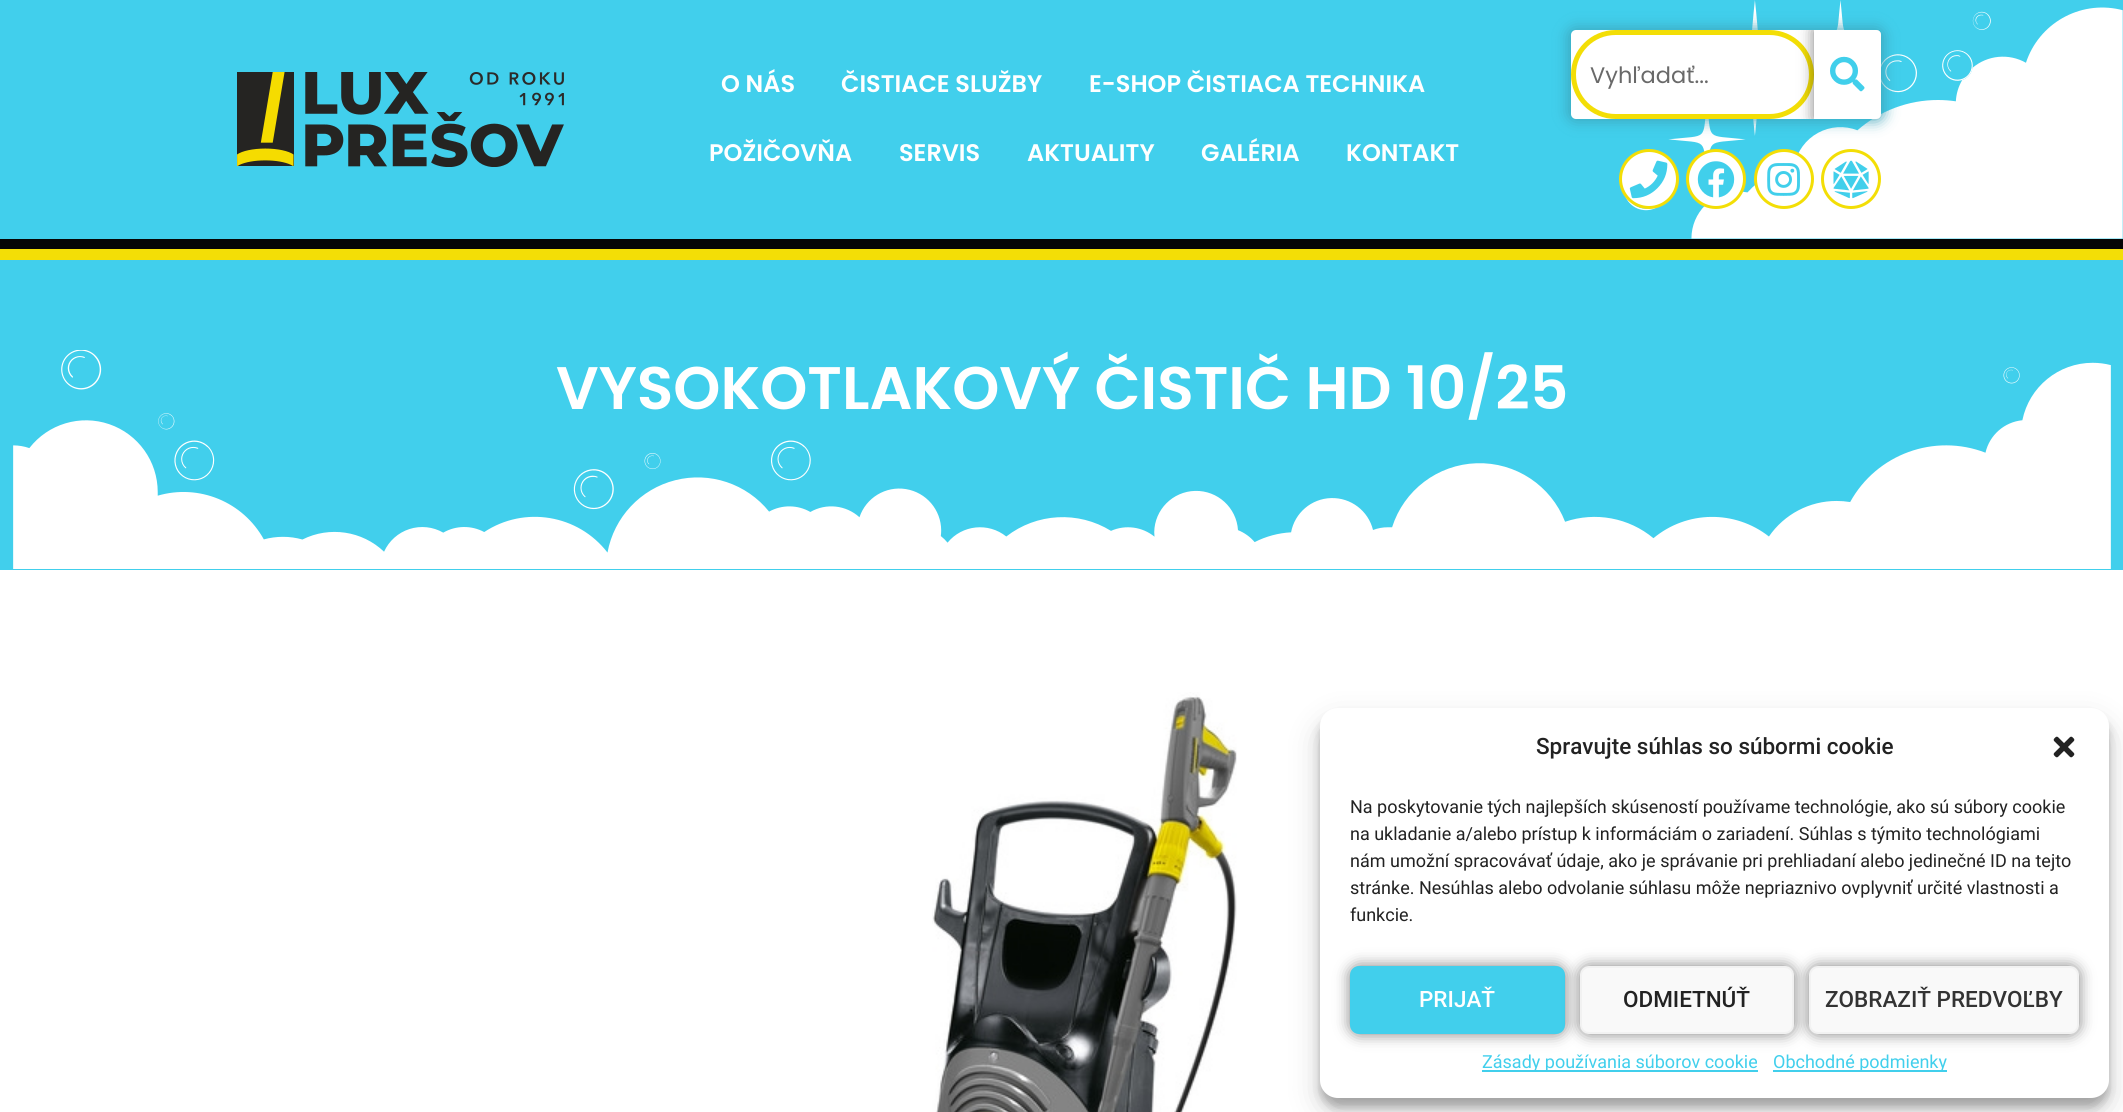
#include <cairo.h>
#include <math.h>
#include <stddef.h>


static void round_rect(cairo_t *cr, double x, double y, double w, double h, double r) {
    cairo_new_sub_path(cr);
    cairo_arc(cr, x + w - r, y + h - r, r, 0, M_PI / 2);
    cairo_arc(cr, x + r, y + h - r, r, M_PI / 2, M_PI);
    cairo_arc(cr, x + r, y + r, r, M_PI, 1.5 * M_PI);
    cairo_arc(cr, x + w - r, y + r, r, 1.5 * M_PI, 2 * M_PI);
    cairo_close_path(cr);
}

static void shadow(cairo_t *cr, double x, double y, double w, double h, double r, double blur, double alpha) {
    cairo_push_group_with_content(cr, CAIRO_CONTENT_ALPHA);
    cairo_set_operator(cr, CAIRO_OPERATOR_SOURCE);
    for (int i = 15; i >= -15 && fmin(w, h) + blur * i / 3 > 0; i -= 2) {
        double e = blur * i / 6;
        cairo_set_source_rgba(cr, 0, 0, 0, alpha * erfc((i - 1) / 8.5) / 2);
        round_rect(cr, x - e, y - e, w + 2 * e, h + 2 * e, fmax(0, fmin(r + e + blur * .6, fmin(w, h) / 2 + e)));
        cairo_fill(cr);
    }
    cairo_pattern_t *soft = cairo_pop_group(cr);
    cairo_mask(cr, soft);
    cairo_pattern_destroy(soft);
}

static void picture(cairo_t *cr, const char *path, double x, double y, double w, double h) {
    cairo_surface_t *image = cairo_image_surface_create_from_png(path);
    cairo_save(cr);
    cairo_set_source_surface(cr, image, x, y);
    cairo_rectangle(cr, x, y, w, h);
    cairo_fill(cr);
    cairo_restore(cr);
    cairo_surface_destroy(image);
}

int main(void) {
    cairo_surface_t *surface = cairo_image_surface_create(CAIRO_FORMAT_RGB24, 2123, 1112);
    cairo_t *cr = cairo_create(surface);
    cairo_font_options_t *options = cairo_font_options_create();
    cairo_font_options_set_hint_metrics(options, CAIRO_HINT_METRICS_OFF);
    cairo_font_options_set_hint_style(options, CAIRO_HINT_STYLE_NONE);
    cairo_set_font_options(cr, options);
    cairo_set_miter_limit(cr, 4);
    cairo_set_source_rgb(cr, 1, 1, 1);
    cairo_paint(cr);
    cairo_set_source_rgb(cr, 0.953, 0.871, 0.027);
    cairo_rectangle(cr, 0, 249, 2123, 11);
    cairo_fill(cr);
    cairo_set_source_rgb(cr, 0.255, 0.812, 0.922);
    cairo_rectangle(cr, 0, 0, 2123, 239);
    cairo_fill(cr);
    picture(cr, "img1.png", 1624, 0, 499, 239);
    cairo_set_source_rgb(cr, 0.02, 0.02, 0.02);
    cairo_rectangle(cr, 0, 239, 2123, 10);
    cairo_fill(cr);
    picture(cr, "img2.png", 237, 72, 327, 95);
    cairo_select_font_face(cr, "Poppins SemiBold", CAIRO_FONT_SLANT_NORMAL, CAIRO_FONT_WEIGHT_NORMAL);
    cairo_set_font_size(cr, 24);
    cairo_set_source_rgb(cr, 1, 1, 1);
    cairo_move_to(cr, 721, 92);
    cairo_show_text(cr, "O NÁS");
    cairo_move_to(cr, 841, 92);
    cairo_show_text(cr, "ČISTIACE SLUŽBY");
    cairo_move_to(cr, 1089, 92);
    cairo_show_text(cr, "E-SHOP ČISTIACA TECHNIKA");
    cairo_move_to(cr, 709, 161);
    cairo_show_text(cr, "POŽIČOVŇA");
    cairo_move_to(cr, 899, 161);
    cairo_show_text(cr, "SERVIS");
    cairo_move_to(cr, 1027, 161);
    cairo_show_text(cr, "AKTUALITY");
    cairo_move_to(cr, 1201, 161);
    cairo_show_text(cr, "GALÉRIA");
    cairo_move_to(cr, 1346, 161);
    cairo_show_text(cr, "KONTAKT");
    cairo_set_source_rgb(cr, 0.231, 0.631, 0.714);
    shadow(cr, 1569, 29, 314, 91, 6, 7.5, 1);
    cairo_set_source_rgb(cr, 1, 1, 1);
    round_rect(cr, 1571, 30, 310, 89, 5);
    cairo_fill(cr);
    round_rect(cr, 1573.5, 32.5, 238, 84, 42);
    cairo_set_source_rgb(cr, 0.953, 0.871, 0.027);
    cairo_set_line_width(cr, 5);
    cairo_stroke(cr);
    cairo_select_font_face(cr, "Poppins", CAIRO_FONT_SLANT_NORMAL, CAIRO_FONT_WEIGHT_NORMAL);
    cairo_set_font_size(cr, 22.5);
    cairo_set_source_rgb(cr, 0.412, 0.412, 0.412);
    cairo_move_to(cr, 1590, 83);
    cairo_show_text(cr, "Vyhľadať...");
    cairo_save(cr);
    round_rect(cr, 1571, 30, 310, 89, 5);
    cairo_clip(cr);
    cairo_set_source_rgb(cr, 0, 0, 0);
    shadow(cr, 1814, 30, 67, 89, 0, 7.5, 0.5);
    cairo_restore(cr);
    cairo_set_source_rgb(cr, 1, 1, 1);
    cairo_new_path(cr);
    cairo_move_to(cr, 1814, 30);
    cairo_line_to(cr, 1876, 30);
    cairo_curve_to(cr, 1879, 30, 1881, 32, 1881, 35);
    cairo_line_to(cr, 1881, 114);
    cairo_curve_to(cr, 1881, 117, 1879, 119, 1876, 119);
    cairo_line_to(cr, 1814, 119);
    cairo_close_path(cr);
    cairo_fill(cr);
    picture(cr, "img3.png", 1830, 56, 35, 36);
    cairo_arc(cr, 1649, 179, 28.5, 0, 2 * M_PI);
    cairo_fill_preserve(cr);
    cairo_set_source_rgb(cr, 0.953, 0.871, 0.027);
    cairo_set_line_width(cr, 3);
    cairo_stroke(cr);
    picture(cr, "img4.png", 1629, 160, 39, 39);
    cairo_set_source_rgb(cr, 1, 1, 1);
    cairo_arc(cr, 1716, 179, 28.5, 0, 2 * M_PI);
    cairo_fill_preserve(cr);
    cairo_set_source_rgb(cr, 0.953, 0.871, 0.027);
    cairo_stroke(cr);
    picture(cr, "img5.png", 1697, 161, 38, 37);
    cairo_set_source_rgb(cr, 1, 1, 1);
    cairo_arc(cr, 1784, 179, 28.5, 0, 2 * M_PI);
    cairo_fill_preserve(cr);
    cairo_set_source_rgb(cr, 0.953, 0.871, 0.027);
    cairo_stroke(cr);
    picture(cr, "img6.png", 1767, 163, 33, 33);
    cairo_arc(cr, 1851, 179, 28.5, 0, 2 * M_PI);
    cairo_stroke(cr);
    picture(cr, "img7.png", 1833, 160, 36, 39);
    cairo_set_source_rgb(cr, 0.255, 0.812, 0.922);
    cairo_rectangle(cr, 0, 260, 2123, 310);
    cairo_fill(cr);
    picture(cr, "img8.png", 13, 350, 2098, 219);
    cairo_select_font_face(cr, "Poppins SemiBold", CAIRO_FONT_SLANT_NORMAL, CAIRO_FONT_WEIGHT_NORMAL);
    cairo_set_font_size(cr, 60);
    cairo_set_source_rgb(cr, 1, 1, 1);
    cairo_move_to(cr, 556, 409);
    cairo_show_text(cr, "VYSOKOTLAKOVÝ ČISTIČ HD 10/25");
    picture(cr, "img9.png", 932, 692, 305, 420);
    cairo_set_source_rgb(cr, 0, 0, 0);
    shadow(cr, 1320, 717, 789, 390, 18, 4.5, 0.23);
    shadow(cr, 1320, 723, 789, 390, 18, 15, 0.19);
    cairo_set_source_rgb(cr, 1, 1, 1);
    round_rect(cr, 1320, 708, 789, 390, 18);
    cairo_fill(cr);
    cairo_select_font_face(cr, "Roboto Medium", CAIRO_FONT_SLANT_NORMAL, CAIRO_FONT_WEIGHT_NORMAL);
    cairo_set_font_size(cr, 22.5);
    cairo_set_source_rgb(cr, 0.133, 0.133, 0.133);
    cairo_move_to(cr, 1536, 754);
    cairo_show_text(cr, "Spravujte súhlas so súbormi cookie");
    picture(cr, "img10.png", 2053, 736, 22, 22);
    cairo_select_font_face(cr, "Roboto", CAIRO_FONT_SLANT_NORMAL, CAIRO_FONT_WEIGHT_NORMAL);
    cairo_set_font_size(cr, 18);
    cairo_move_to(cr, 1350, 813);
    cairo_show_text(cr, "Na poskytovanie tých najlepších skúseností používame technológie, ako sú súbory cookie");
    cairo_move_to(cr, 1350, 840);
    cairo_show_text(cr, "na ukladanie a/alebo prístup k informáciám o zariadení. Súhlas s týmito technológiami");
    cairo_move_to(cr, 1350, 867);
    cairo_show_text(cr, "nám umožní spracovávať údaje, ako je správanie pri prehliadaní alebo jedinečné ID na tejto");
    cairo_move_to(cr, 1350, 894);
    cairo_show_text(cr, "stránke. Nesúhlas alebo odvolanie súhlasu môže nepriaznivo ovplyvniť určité vlastnosti a");
    cairo_move_to(cr, 1350, 921);
    cairo_show_text(cr, "funkcie.");
    cairo_set_source_rgb(cr, 0, 0, 0);
    shadow(cr, 1350, 966, 215, 68, 9, 7.5, 0.5);
    cairo_set_source_rgb(cr, 0.255, 0.812, 0.922);
    round_rect(cr, 1351, 967, 213, 66, 8);
    cairo_fill_preserve(cr);
    cairo_set_line_width(cr, 2);
    cairo_stroke(cr);
    cairo_select_font_face(cr, "Roboto Medium", CAIRO_FONT_SLANT_NORMAL, CAIRO_FONT_WEIGHT_NORMAL);
    cairo_set_font_size(cr, 22.5);
    cairo_set_source_rgb(cr, 1, 1, 1);
    cairo_move_to(cr, 1419, 1007);
    cairo_show_text(cr, "PRIJAŤ");
    cairo_set_source_rgb(cr, 0, 0, 0);
    shadow(cr, 1580, 966, 214, 68, 9, 7.5, 0.5);
    cairo_set_source_rgb(cr, 0.976, 0.976, 0.976);
    round_rect(cr, 1581, 967, 212, 66, 8);
    cairo_fill_preserve(cr);
    cairo_set_source_rgb(cr, 0.949, 0.949, 0.949);
    cairo_stroke(cr);
    cairo_set_source_rgb(cr, 0.133, 0.133, 0.133);
    cairo_move_to(cr, 1623, 1007);
    cairo_show_text(cr, "ODMIETNÚŤ");
    cairo_set_source_rgb(cr, 0, 0, 0);
    shadow(cr, 1809, 966, 270, 68, 9, 7.5, 0.5);
    cairo_set_source_rgb(cr, 0.976, 0.976, 0.976);
    round_rect(cr, 1810, 967, 268, 66, 8);
    cairo_fill_preserve(cr);
    cairo_set_source_rgb(cr, 0.949, 0.949, 0.949);
    cairo_stroke(cr);
    cairo_set_source_rgb(cr, 0.2, 0.2, 0.2);
    cairo_move_to(cr, 1825, 1007);
    cairo_show_text(cr, "ZOBRAZIŤ PREDVOĽBY");
    cairo_set_source_rgb(cr, 0.255, 0.812, 0.922);
    cairo_rectangle(cr, 1482, 1070, 276, 2);
    cairo_fill(cr);
    cairo_select_font_face(cr, "Roboto", CAIRO_FONT_SLANT_NORMAL, CAIRO_FONT_WEIGHT_NORMAL);
    cairo_set_font_size(cr, 18);
    cairo_move_to(cr, 1482, 1068);
    cairo_show_text(cr, "Zásady používania súborov cookie");
    cairo_rectangle(cr, 1773, 1070, 174, 2);
    cairo_fill(cr);
    cairo_move_to(cr, 1773, 1068);
    cairo_show_text(cr, "Obchodné podmienky");
    cairo_surface_write_to_png(surface, "page.png");
    cairo_font_options_destroy(options);
    cairo_destroy(cr);
    cairo_surface_destroy(surface);
    return 0;
}
